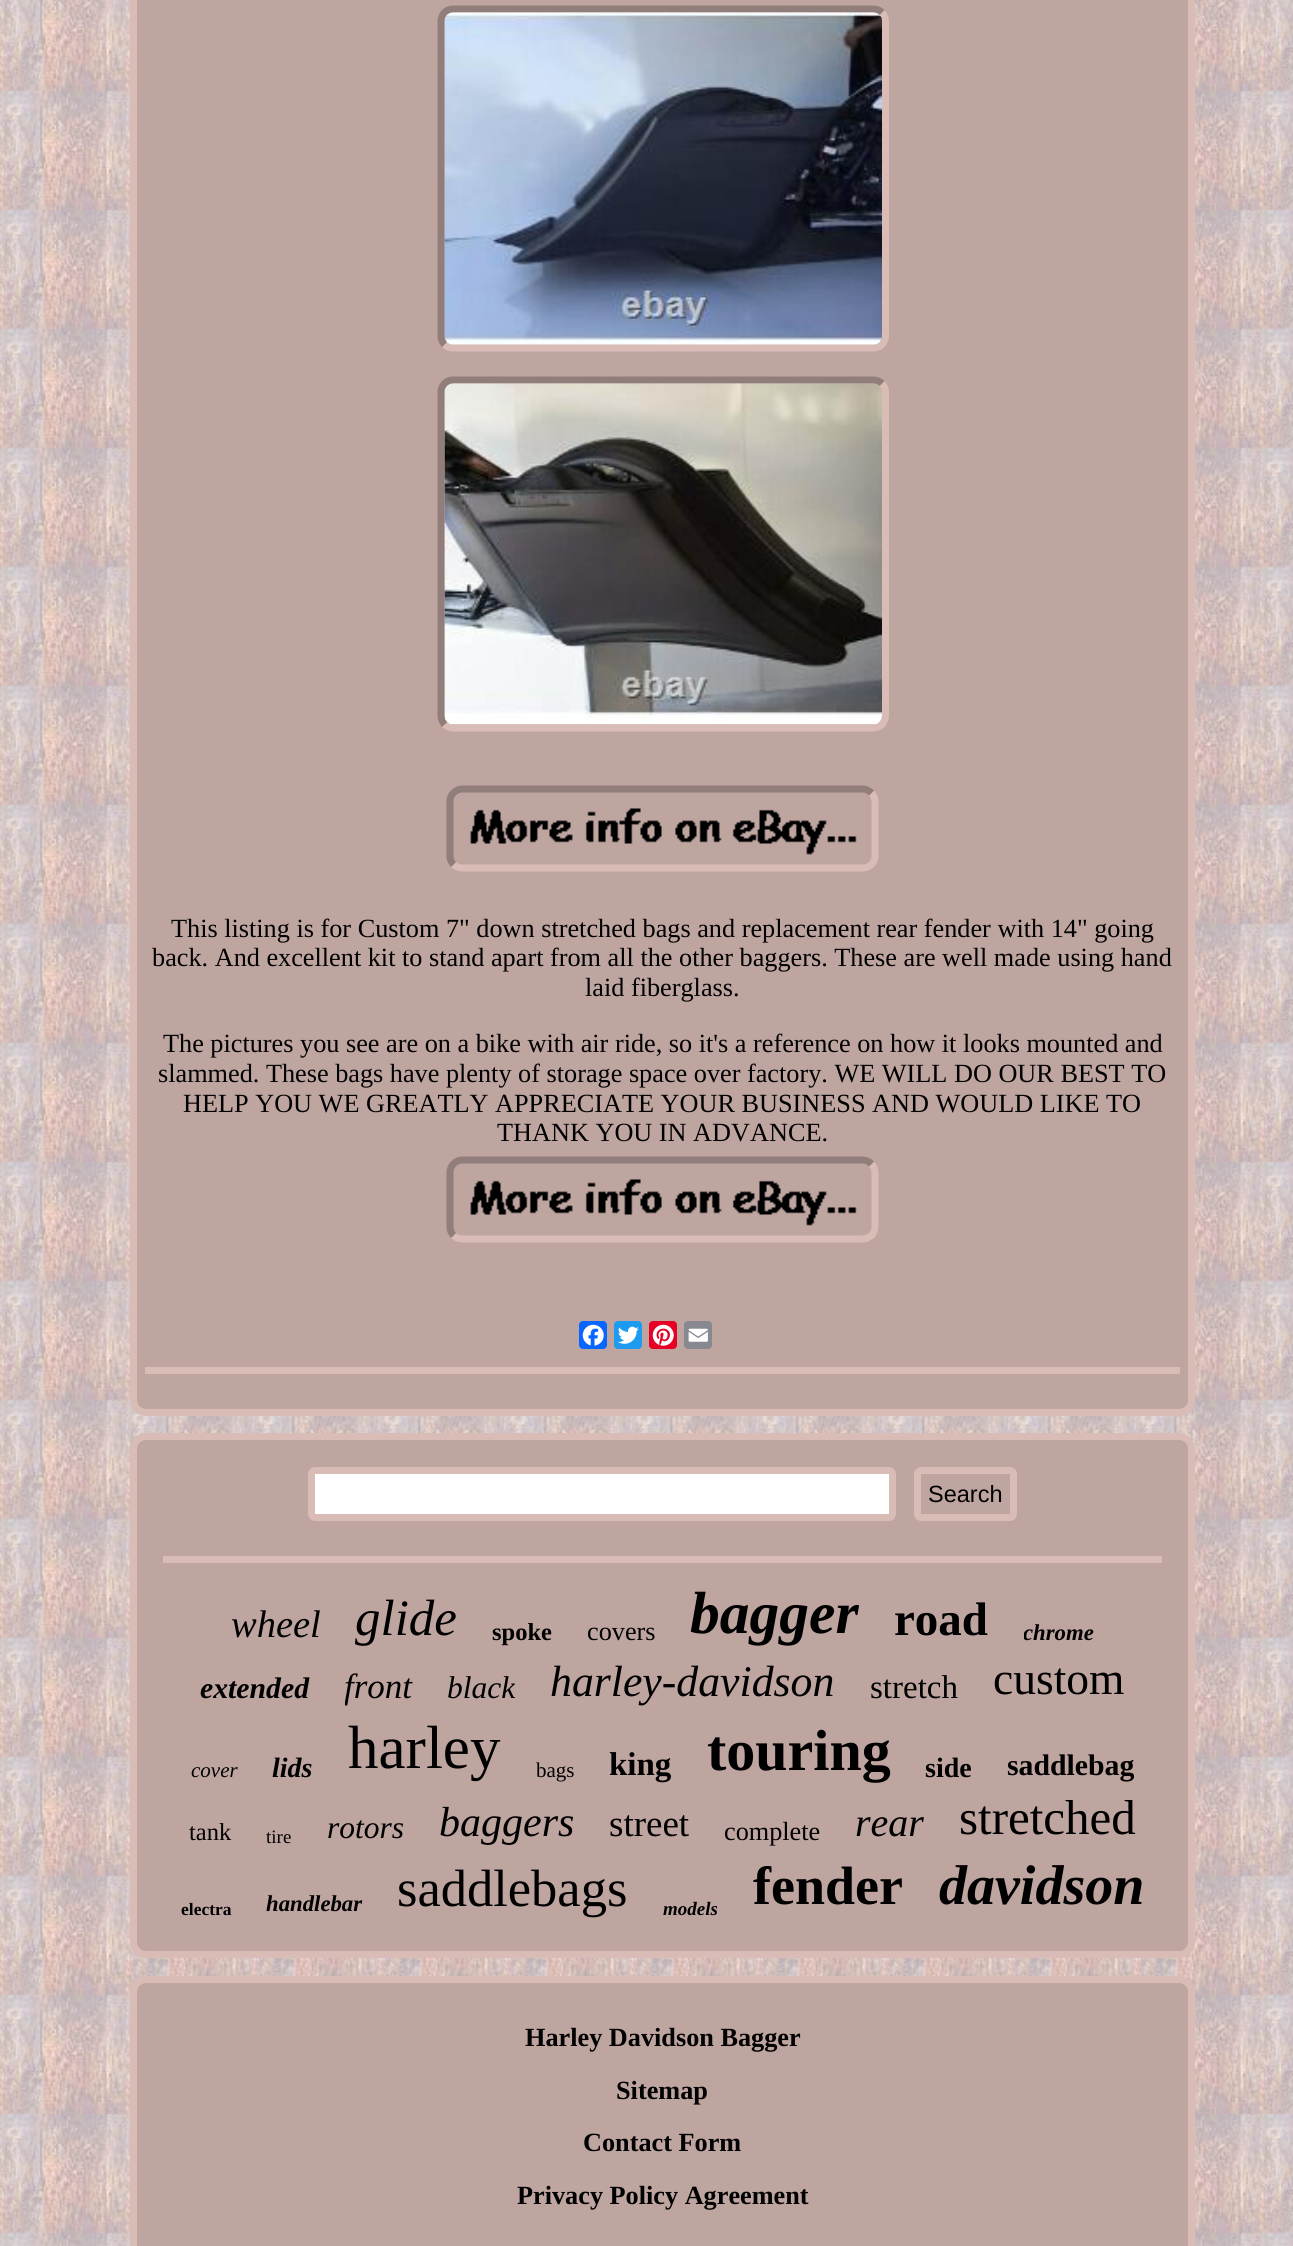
#include <cairo.h>
#include <math.h>
#include <stddef.h>


static void round_rect(cairo_t *cr, double x, double y, double w, double h, double r) {
    cairo_new_sub_path(cr);
    cairo_arc(cr, x + w - r, y + h - r, r, 0, M_PI / 2);
    cairo_arc(cr, x + r, y + h - r, r, M_PI / 2, M_PI);
    cairo_arc(cr, x + r, y + r, r, M_PI, 1.5 * M_PI);
    cairo_arc(cr, x + w - r, y + r, r, 1.5 * M_PI, 2 * M_PI);
    cairo_close_path(cr);
}

static void picture(cairo_t *cr, const char *path, double x, double y, double w, double h) {
    cairo_surface_t *image = cairo_image_surface_create_from_png(path);
    cairo_save(cr);
    cairo_set_source_surface(cr, image, x, y);
    cairo_rectangle(cr, x, y, w, h);
    cairo_fill(cr);
    cairo_restore(cr);
    cairo_surface_destroy(image);
}

int main(void) {
    cairo_surface_t *surface = cairo_image_surface_create(CAIRO_FORMAT_RGB24, 1293, 2246);
    cairo_t *cr = cairo_create(surface);
    cairo_font_options_t *options = cairo_font_options_create();
    cairo_font_options_set_hint_metrics(options, CAIRO_HINT_METRICS_OFF);
    cairo_font_options_set_hint_style(options, CAIRO_HINT_STYLE_NONE);
    cairo_set_font_options(cr, options);
    cairo_set_miter_limit(cr, 4);
    cairo_set_source_rgb(cr, 1, 1, 1);
    cairo_paint(cr);
    picture(cr, "img1.png", 0, 0, 1293, 2246);
    cairo_set_source_rgb(cr, 0.745, 0.647, 0.627);
    round_rect(cr, 133.5, -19.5, 1058, 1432, 12.5);
    cairo_fill_preserve(cr);
    cairo_set_source_rgb(cr, 0.851, 0.737, 0.714);
    cairo_set_line_width(cr, 7);
    cairo_stroke(cr);
    cairo_new_path(cr);
    cairo_move_to(cr, 882, 12.5);
    cairo_curve_to(cr, 884, 14.5, 885.5, 18, 885.5, 21);
    cairo_line_to(cr, 885.5, 336);
    cairo_curve_to(cr, 885.5, 339, 884, 342.5, 882, 344.5);
    cairo_curve_to(cr, 879.5, 347, 876.5, 348, 873, 348);
    cairo_line_to(cr, 453, 348);
    cairo_curve_to(cr, 450, 348, 447, 347, 444.5, 344.5);
    cairo_stroke(cr);
    cairo_new_path(cr);
    cairo_move_to(cr, 444.5, 344.5);
    cairo_curve_to(cr, 442.5, 342.5, 441, 339, 441, 336);
    cairo_line_to(cr, 441, 21);
    cairo_curve_to(cr, 441, 18, 442.5, 14.5, 444.5, 12.5);
    cairo_curve_to(cr, 447, 10, 450, 9, 453, 9);
    cairo_line_to(cr, 873, 9);
    cairo_curve_to(cr, 876.5, 9, 879.5, 10, 882, 12.5);
    cairo_set_source_rgb(cr, 0.569, 0.49, 0.475);
    cairo_stroke(cr);
    picture(cr, "img2.png", 444, 12, 438, 333);
    cairo_new_path(cr);
    cairo_move_to(cr, 882, 383.5);
    cairo_curve_to(cr, 884, 385.5, 885.5, 389, 885.5, 392);
    cairo_line_to(cr, 885.5, 716);
    cairo_curve_to(cr, 885.5, 719, 884, 722, 882, 724.5);
    cairo_curve_to(cr, 879.5, 726.5, 876.5, 728, 873, 728);
    cairo_line_to(cr, 453, 728);
    cairo_curve_to(cr, 450, 728, 447, 726.5, 444.5, 724.5);
    cairo_set_source_rgb(cr, 0.851, 0.737, 0.714);
    cairo_stroke(cr);
    cairo_new_path(cr);
    cairo_move_to(cr, 444.5, 724.5);
    cairo_curve_to(cr, 442.5, 722, 441, 719, 441, 716);
    cairo_line_to(cr, 441, 392);
    cairo_curve_to(cr, 441, 389, 442.5, 385.5, 444.5, 383.5);
    cairo_curve_to(cr, 447, 381, 450, 380, 453, 380);
    cairo_line_to(cr, 873, 380);
    cairo_curve_to(cr, 876.5, 380, 879.5, 381, 882, 383.5);
    cairo_set_source_rgb(cr, 0.569, 0.49, 0.475);
    cairo_stroke(cr);
    picture(cr, "img3.png", 444, 383, 438, 342);
    cairo_new_path(cr);
    cairo_move_to(cr, 871.5, 793);
    cairo_curve_to(cr, 873.5, 795, 875, 798.5, 875, 801.5);
    cairo_line_to(cr, 875, 856);
    cairo_curve_to(cr, 875, 859, 873.5, 862, 871.5, 864.5);
    cairo_curve_to(cr, 869, 866.5, 866, 868, 863, 868);
    cairo_line_to(cr, 462, 868);
    cairo_curve_to(cr, 459, 868, 455.5, 866.5, 453.5, 864.5);
    cairo_set_source_rgb(cr, 0.851, 0.737, 0.714);
    cairo_stroke(cr);
    cairo_new_path(cr);
    cairo_move_to(cr, 453.5, 864.5);
    cairo_curve_to(cr, 451, 862, 450, 859, 450, 856);
    cairo_line_to(cr, 450, 801.5);
    cairo_curve_to(cr, 450, 798.5, 451, 795, 453.5, 793);
    cairo_curve_to(cr, 455.5, 790.5, 459, 789, 462, 789);
    cairo_line_to(cr, 863, 789);
    cairo_curve_to(cr, 866, 789, 869, 790.5, 871.5, 793);
    cairo_set_source_rgb(cr, 0.569, 0.49, 0.475);
    cairo_stroke(cr);
    picture(cr, "img4.png", 470, 808, 387, 47);
    cairo_select_font_face(cr, "Liberation Serif", CAIRO_FONT_SLANT_NORMAL, CAIRO_FONT_WEIGHT_NORMAL);
    cairo_set_font_size(cr, 26.25);
    cairo_set_source_rgb(cr, 0, 0, 0);
    cairo_move_to(cr, 171, 937);
    cairo_show_text(cr, "This listing is for Custom 7\" down stretched bags and replacement rear fender with 14\" going");
    cairo_move_to(cr, 152, 966);
    cairo_show_text(cr, "back. And excellent kit to stand apart from all the other baggers. These are well made using hand");
    cairo_move_to(cr, 585, 996);
    cairo_show_text(cr, "laid fiberglass.");
    cairo_move_to(cr, 163, 1052);
    cairo_show_text(cr, "The pictures you see are on a bike with air ride, so it's a reference on how it looks mounted and");
    cairo_move_to(cr, 158, 1082);
    cairo_show_text(cr, "slammed. These bags have plenty of storage space over factory. WE WILL DO OUR BEST TO");
    cairo_move_to(cr, 183, 1112);
    cairo_show_text(cr, "HELP YOU WE GREATLY APPRECIATE YOUR BUSINESS AND WOULD LIKE TO");
    cairo_move_to(cr, 497, 1141);
    cairo_show_text(cr, "THANK YOU IN ADVANCE.");
    cairo_new_path(cr);
    cairo_move_to(cr, 871.5, 1164);
    cairo_curve_to(cr, 873.5, 1166, 875, 1169.5, 875, 1172.5);
    cairo_line_to(cr, 875, 1227);
    cairo_curve_to(cr, 875, 1230, 873.5, 1233, 871.5, 1235.5);
    cairo_curve_to(cr, 869, 1237.5, 866, 1239, 863, 1239);
    cairo_line_to(cr, 462, 1239);
    cairo_curve_to(cr, 459, 1239, 455.5, 1237.5, 453.5, 1235.5);
    cairo_set_source_rgb(cr, 0.851, 0.737, 0.714);
    cairo_stroke(cr);
    cairo_new_path(cr);
    cairo_move_to(cr, 453.5, 1235.5);
    cairo_curve_to(cr, 451, 1233, 450, 1230, 450, 1227);
    cairo_line_to(cr, 450, 1172.5);
    cairo_curve_to(cr, 450, 1169.5, 451, 1166, 453.5, 1164);
    cairo_curve_to(cr, 455.5, 1161.5, 459, 1160, 462, 1160);
    cairo_line_to(cr, 863, 1160);
    cairo_curve_to(cr, 866, 1160, 869, 1161.5, 871.5, 1164);
    cairo_set_source_rgb(cr, 0.569, 0.49, 0.475);
    cairo_stroke(cr);
    picture(cr, "img4.png", 470, 1179, 387, 47);
    cairo_set_source_rgb(cr, 0.031, 0.4, 1);
    round_rect(cr, 579, 1321, 28, 28, 4);
    cairo_fill(cr);
    picture(cr, "img5.png", 582, 1324, 22, 22);
    cairo_set_source_rgb(cr, 0.114, 0.608, 0.941);
    round_rect(cr, 614, 1321, 28, 28, 4);
    cairo_fill(cr);
    picture(cr, "img6.png", 618, 1326, 21, 18);
    cairo_set_source_rgb(cr, 0.902, 0, 0.137);
    round_rect(cr, 649, 1321, 28, 28, 4);
    cairo_fill(cr);
    picture(cr, "img7.png", 652, 1324, 22, 22);
    cairo_set_source_rgb(cr, 0.533, 0.537, 0.565);
    round_rect(cr, 684, 1321, 28, 28, 4);
    cairo_fill(cr);
    picture(cr, "img8.png", 688, 1328, 20, 14);
    cairo_set_source_rgb(cr, 0.851, 0.737, 0.714);
    cairo_rectangle(cr, 145, 1367, 1035, 7);
    cairo_fill(cr);
    cairo_set_source_rgb(cr, 0.745, 0.647, 0.627);
    round_rect(cr, 133.5, 1436.5, 1058, 518, 12.5);
    cairo_fill_preserve(cr);
    cairo_set_source_rgb(cr, 0.851, 0.737, 0.714);
    cairo_stroke(cr);
    cairo_set_source_rgb(cr, 1, 1, 1);
    round_rect(cr, 311.5, 1470.5, 581, 47, 3.5);
    cairo_fill_preserve(cr);
    cairo_set_source_rgb(cr, 0.851, 0.737, 0.714);
    cairo_stroke(cr);
    round_rect(cr, 917.5, 1470.5, 96, 47, 3.5);
    cairo_stroke(cr);
    cairo_select_font_face(cr, "Liberation Sans", CAIRO_FONT_SLANT_NORMAL, CAIRO_FONT_WEIGHT_NORMAL);
    cairo_set_font_size(cr, 23.5);
    cairo_set_source_rgb(cr, 0, 0, 0);
    cairo_move_to(cr, 928, 1502);
    cairo_show_text(cr, "Search");
    cairo_set_source_rgb(cr, 0.851, 0.737, 0.714);
    cairo_rectangle(cr, 163, 1556, 999, 7);
    cairo_fill(cr);
    cairo_select_font_face(cr, "Liberation Serif", CAIRO_FONT_SLANT_ITALIC, CAIRO_FONT_WEIGHT_NORMAL);
    cairo_set_font_size(cr, 38.5);
    cairo_set_source_rgb(cr, 0, 0, 0);
    cairo_move_to(cr, 231, 1637);
    cairo_show_text(cr, "wheel");
    cairo_set_font_size(cr, 51);
    cairo_move_to(cr, 355, 1635);
    cairo_show_text(cr, "glide");
    cairo_select_font_face(cr, "Liberation Serif", CAIRO_FONT_SLANT_NORMAL, CAIRO_FONT_WEIGHT_BOLD);
    cairo_set_font_size(cr, 24.5);
    cairo_move_to(cr, 492, 1640);
    cairo_show_text(cr, "spoke");
    cairo_select_font_face(cr, "Liberation Serif", CAIRO_FONT_SLANT_NORMAL, CAIRO_FONT_WEIGHT_NORMAL);
    cairo_set_font_size(cr, 26.25);
    cairo_move_to(cr, 587, 1640);
    cairo_show_text(cr, "covers");
    cairo_select_font_face(cr, "Liberation Serif", CAIRO_FONT_SLANT_ITALIC, CAIRO_FONT_WEIGHT_BOLD);
    cairo_set_font_size(cr, 59.5);
    cairo_move_to(cr, 690, 1633);
    cairo_show_text(cr, "bagger");
    cairo_select_font_face(cr, "Liberation Serif", CAIRO_FONT_SLANT_NORMAL, CAIRO_FONT_WEIGHT_BOLD);
    cairo_set_font_size(cr, 47);
    cairo_move_to(cr, 894, 1635);
    cairo_show_text(cr, "road");
    cairo_save(cr);
    cairo_rectangle(cr, 1024, 1619, 70, 28);
    cairo_clip(cr);
    cairo_select_font_face(cr, "Liberation Serif", CAIRO_FONT_SLANT_ITALIC, CAIRO_FONT_WEIGHT_BOLD);
    cairo_set_font_size(cr, 22.75);
    cairo_move_to(cr, 1023, 1640);
    cairo_show_text(cr, "chrome");
    cairo_restore(cr);
    cairo_select_font_face(cr, "Liberation Serif", CAIRO_FONT_SLANT_ITALIC, CAIRO_FONT_WEIGHT_BOLD);
    cairo_set_font_size(cr, 29.75);
    cairo_move_to(cr, 200, 1698);
    cairo_show_text(cr, "extended");
    cairo_save(cr);
    cairo_rectangle(cr, 345, 1666, 68, 40);
    cairo_clip(cr);
    cairo_select_font_face(cr, "Liberation Serif", CAIRO_FONT_SLANT_ITALIC, CAIRO_FONT_WEIGHT_NORMAL);
    cairo_set_font_size(cr, 35);
    cairo_move_to(cr, 344, 1698);
    cairo_show_text(cr, "front");
    cairo_restore(cr);
    cairo_save(cr);
    cairo_rectangle(cr, 448, 1670, 67, 36);
    cairo_clip(cr);
    cairo_select_font_face(cr, "Liberation Serif", CAIRO_FONT_SLANT_ITALIC, CAIRO_FONT_WEIGHT_NORMAL);
    cairo_set_font_size(cr, 31.5);
    cairo_move_to(cr, 447, 1698);
    cairo_show_text(cr, "black");
    cairo_restore(cr);
    cairo_select_font_face(cr, "Liberation Serif", CAIRO_FONT_SLANT_ITALIC, CAIRO_FONT_WEIGHT_NORMAL);
    cairo_set_font_size(cr, 43.75);
    cairo_move_to(cr, 550, 1696);
    cairo_show_text(cr, "harley-davidson");
    cairo_select_font_face(cr, "Liberation Serif", CAIRO_FONT_SLANT_NORMAL, CAIRO_FONT_WEIGHT_NORMAL);
    cairo_set_font_size(cr, 33);
    cairo_move_to(cr, 870, 1698);
    cairo_show_text(cr, "stretch");
    cairo_set_font_size(cr, 45.5);
    cairo_move_to(cr, 993, 1694);
    cairo_show_text(cr, "custom");
    cairo_select_font_face(cr, "Liberation Serif", CAIRO_FONT_SLANT_ITALIC, CAIRO_FONT_WEIGHT_NORMAL);
    cairo_set_font_size(cr, 21);
    cairo_move_to(cr, 191, 1777);
    cairo_show_text(cr, "cover");
    cairo_select_font_face(cr, "Liberation Serif", CAIRO_FONT_SLANT_ITALIC, CAIRO_FONT_WEIGHT_BOLD);
    cairo_set_font_size(cr, 28);
    cairo_move_to(cr, 272, 1777);
    cairo_show_text(cr, "lids");
    cairo_select_font_face(cr, "Liberation Serif", CAIRO_FONT_SLANT_NORMAL, CAIRO_FONT_WEIGHT_NORMAL);
    cairo_set_font_size(cr, 61);
    cairo_move_to(cr, 348, 1768);
    cairo_show_text(cr, "harley");
    cairo_set_font_size(cr, 21);
    cairo_move_to(cr, 536, 1777);
    cairo_show_text(cr, "bags");
    cairo_select_font_face(cr, "Liberation Serif", CAIRO_FONT_SLANT_NORMAL, CAIRO_FONT_WEIGHT_BOLD);
    cairo_set_font_size(cr, 33);
    cairo_move_to(cr, 609, 1775);
    cairo_show_text(cr, "king");
    cairo_set_font_size(cr, 58);
    cairo_move_to(cr, 707, 1770);
    cairo_show_text(cr, "touring");
    cairo_set_font_size(cr, 28);
    cairo_move_to(cr, 925, 1777);
    cairo_show_text(cr, "side");
    cairo_set_font_size(cr, 29.75);
    cairo_move_to(cr, 1007, 1775);
    cairo_show_text(cr, "saddlebag");
    cairo_select_font_face(cr, "Liberation Serif", CAIRO_FONT_SLANT_NORMAL, CAIRO_FONT_WEIGHT_NORMAL);
    cairo_set_font_size(cr, 24.5);
    cairo_move_to(cr, 189, 1840);
    cairo_show_text(cr, "tank");
    cairo_set_font_size(cr, 19);
    cairo_move_to(cr, 266, 1843);
    cairo_show_text(cr, "tire");
    cairo_select_font_face(cr, "Liberation Serif", CAIRO_FONT_SLANT_ITALIC, CAIRO_FONT_WEIGHT_NORMAL);
    cairo_set_font_size(cr, 31.5);
    cairo_move_to(cr, 327, 1838);
    cairo_show_text(cr, "rotors");
    cairo_set_font_size(cr, 42);
    cairo_move_to(cr, 439, 1836);
    cairo_show_text(cr, "baggers");
    cairo_select_font_face(cr, "Liberation Serif", CAIRO_FONT_SLANT_NORMAL, CAIRO_FONT_WEIGHT_NORMAL);
    cairo_set_font_size(cr, 37);
    cairo_move_to(cr, 609, 1836);
    cairo_show_text(cr, "street");
    cairo_set_font_size(cr, 26.25);
    cairo_move_to(cr, 724, 1840);
    cairo_show_text(cr, "complete");
    cairo_select_font_face(cr, "Liberation Serif", CAIRO_FONT_SLANT_ITALIC, CAIRO_FONT_WEIGHT_NORMAL);
    cairo_set_font_size(cr, 40);
    cairo_move_to(cr, 855, 1836);
    cairo_show_text(cr, "rear");
    cairo_select_font_face(cr, "Liberation Serif", CAIRO_FONT_SLANT_NORMAL, CAIRO_FONT_WEIGHT_NORMAL);
    cairo_set_font_size(cr, 49);
    cairo_move_to(cr, 959, 1834);
    cairo_show_text(cr, "stretched");
    cairo_select_font_face(cr, "Liberation Serif", CAIRO_FONT_SLANT_NORMAL, CAIRO_FONT_WEIGHT_BOLD);
    cairo_set_font_size(cr, 17.5);
    cairo_move_to(cr, 181, 1915);
    cairo_show_text(cr, "electra");
    cairo_select_font_face(cr, "Liberation Serif", CAIRO_FONT_SLANT_ITALIC, CAIRO_FONT_WEIGHT_BOLD);
    cairo_set_font_size(cr, 22.75);
    cairo_move_to(cr, 266, 1911);
    cairo_show_text(cr, "handlebar");
    cairo_select_font_face(cr, "Liberation Serif", CAIRO_FONT_SLANT_NORMAL, CAIRO_FONT_WEIGHT_NORMAL);
    cairo_set_font_size(cr, 52.5);
    cairo_move_to(cr, 397, 1906);
    cairo_show_text(cr, "saddlebags");
    cairo_select_font_face(cr, "Liberation Serif", CAIRO_FONT_SLANT_ITALIC, CAIRO_FONT_WEIGHT_BOLD);
    cairo_set_font_size(cr, 19);
    cairo_move_to(cr, 663, 1915);
    cairo_show_text(cr, "models");
    cairo_select_font_face(cr, "Liberation Serif", CAIRO_FONT_SLANT_NORMAL, CAIRO_FONT_WEIGHT_BOLD);
    cairo_set_font_size(cr, 54);
    cairo_move_to(cr, 753, 1904);
    cairo_show_text(cr, "fender");
    cairo_select_font_face(cr, "Liberation Serif", CAIRO_FONT_SLANT_ITALIC, CAIRO_FONT_WEIGHT_BOLD);
    cairo_set_font_size(cr, 56);
    cairo_move_to(cr, 939, 1904);
    cairo_show_text(cr, "davidson");
    cairo_set_source_rgb(cr, 0.745, 0.647, 0.627);
    round_rect(cr, 133.5, 1979.5, 1058, 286, 12.5);
    cairo_fill_preserve(cr);
    cairo_set_source_rgb(cr, 0.851, 0.737, 0.714);
    cairo_stroke(cr);
    cairo_select_font_face(cr, "Liberation Serif", CAIRO_FONT_SLANT_NORMAL, CAIRO_FONT_WEIGHT_BOLD);
    cairo_set_font_size(cr, 26.25);
    cairo_set_source_rgb(cr, 0, 0, 0);
    cairo_move_to(cr, 525, 2046);
    cairo_show_text(cr, "Harley Davidson Bagger");
    cairo_move_to(cr, 616, 2099);
    cairo_show_text(cr, "Sitemap");
    cairo_move_to(cr, 583, 2151);
    cairo_show_text(cr, "Contact Form");
    cairo_move_to(cr, 517, 2204);
    cairo_show_text(cr, "Privacy Policy Agreement");
    cairo_surface_write_to_png(surface, "page.png");
    cairo_font_options_destroy(options);
    cairo_destroy(cr);
    cairo_surface_destroy(surface);
    return 0;
}
